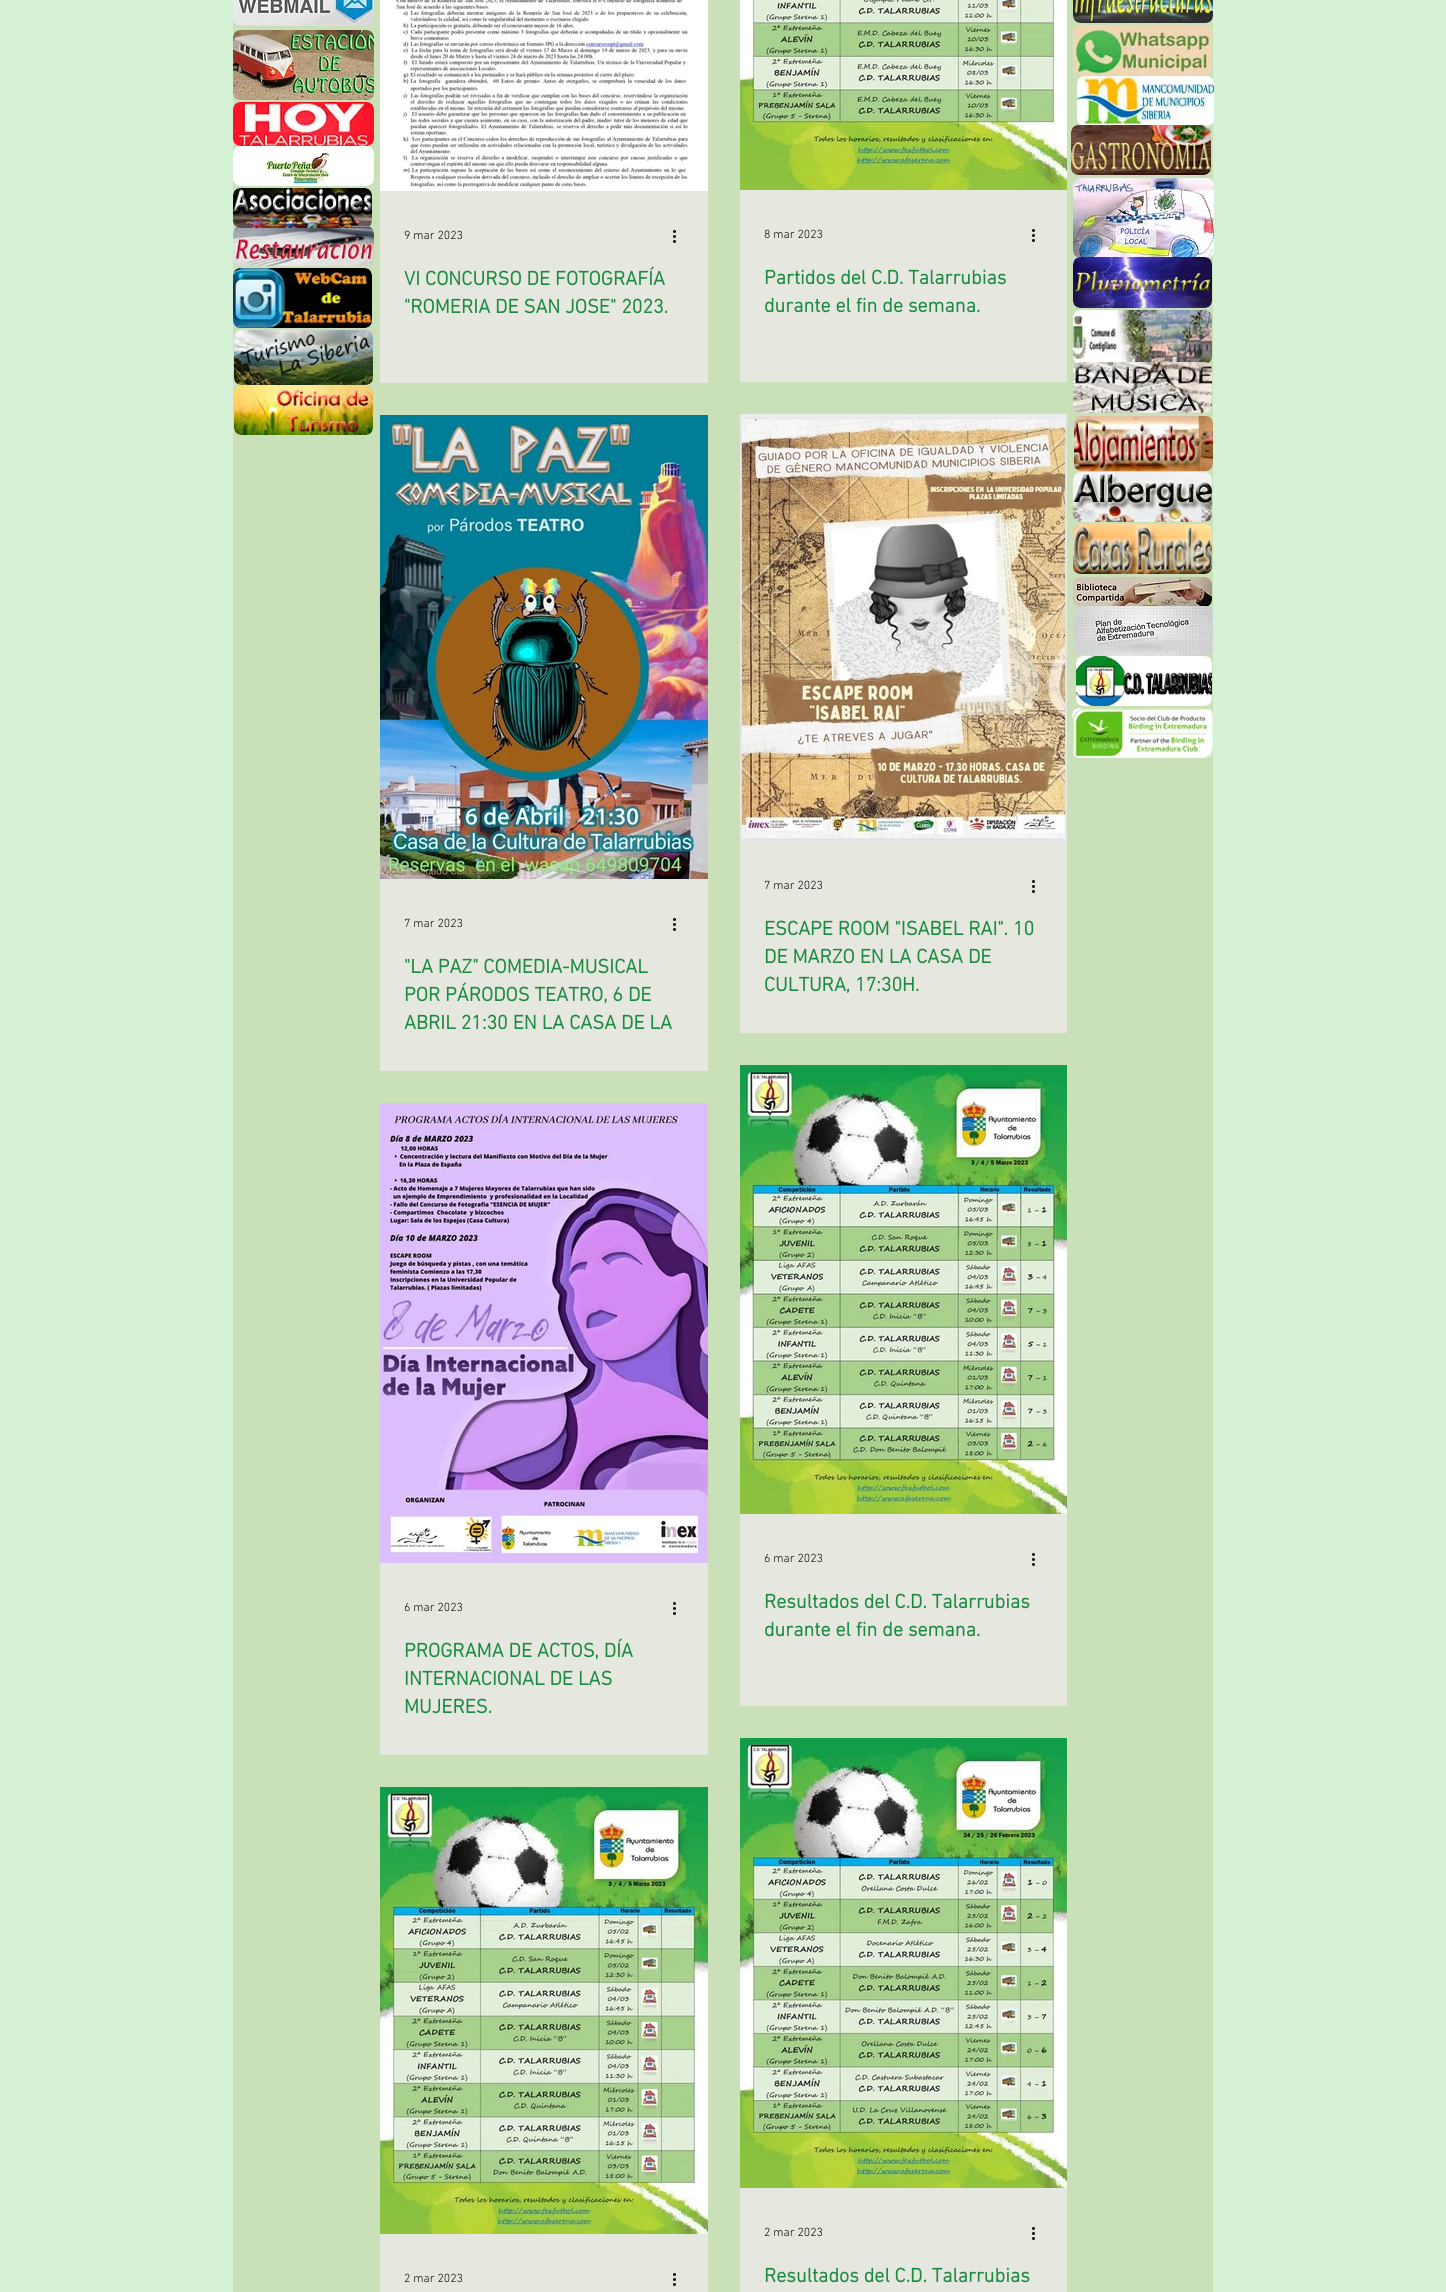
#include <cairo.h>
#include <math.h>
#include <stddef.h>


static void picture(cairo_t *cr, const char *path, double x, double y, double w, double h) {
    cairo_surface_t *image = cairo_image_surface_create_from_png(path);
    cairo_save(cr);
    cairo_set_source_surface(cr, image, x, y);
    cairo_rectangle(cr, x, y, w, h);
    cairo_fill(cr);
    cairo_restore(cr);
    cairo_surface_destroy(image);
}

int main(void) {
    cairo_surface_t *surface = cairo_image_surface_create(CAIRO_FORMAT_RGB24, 1446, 2292);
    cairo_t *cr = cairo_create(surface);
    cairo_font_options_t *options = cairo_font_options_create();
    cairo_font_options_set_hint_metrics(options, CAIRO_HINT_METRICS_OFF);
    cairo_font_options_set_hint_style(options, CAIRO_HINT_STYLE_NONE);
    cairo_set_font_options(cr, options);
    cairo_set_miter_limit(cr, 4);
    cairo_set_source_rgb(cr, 0.835, 0.949, 0.839);
    cairo_paint(cr);
    cairo_set_source_rgb(cr, 0.792, 0.878, 0.722);
    cairo_rectangle(cr, 233, 0, 980, 2292);
    cairo_fill(cr);
    picture(cr, "img1.png", 233, 0, 141, 26);
    picture(cr, "img2.png", 1073, 0, 140, 23);
    picture(cr, "img3.png", 233, 30, 141, 70);
    picture(cr, "img4.png", 1073, 25, 139, 50);
    picture(cr, "img5.png", 233, 102, 141, 44);
    picture(cr, "img6.png", 1077, 76, 137, 50);
    picture(cr, "img7.png", 233, 146, 141, 40);
    picture(cr, "img8.png", 1071, 125, 140, 50);
    picture(cr, "img11.png", 233, 226, 141, 40);
    picture(cr, "img9.png", 233, 188, 139, 40);
    picture(cr, "img10.png", 1073, 178, 141, 80);
    picture(cr, "img12.png", 233, 268, 139, 60);
    picture(cr, "img13.png", 1073, 257, 139, 51);
    picture(cr, "img14.png", 234, 330, 139, 55);
    picture(cr, "img15.png", 1073, 310, 139, 53);
    picture(cr, "img16.png", 234, 385, 139, 50);
    picture(cr, "img17.png", 1073, 362, 139, 51);
    picture(cr, "img18.png", 1074, 416, 139, 55);
    picture(cr, "img19.png", 1073, 472, 139, 50);
    picture(cr, "img20.png", 1073, 524, 139, 50);
    picture(cr, "img21.png", 1073, 577, 139, 30);
    picture(cr, "img22.png", 1074, 606, 139, 50);
    picture(cr, "img23.png", 1076, 656, 136, 50);
    picture(cr, "img24.png", 1072, 708, 141, 50);
    picture(cr, "img25.png", 380, 0, 328, 191);
    cairo_set_source_rgb(cr, 0.902, 0.91, 0.875);
    cairo_rectangle(cr, 380, 191, 328, 192);
    cairo_fill(cr);
    cairo_select_font_face(cr, "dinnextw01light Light", CAIRO_FONT_SLANT_NORMAL, CAIRO_FONT_WEIGHT_NORMAL);
    cairo_set_font_size(cr, 12);
    cairo_set_source_rgb(cr, 0, 0, 0);
    cairo_move_to(cr, 404, 239);
    cairo_show_text(cr, "9 mar 2023");
    picture(cr, "img26.png", 673, 230, 3, 13);
    cairo_select_font_face(cr, "dinnextw01light", CAIRO_FONT_SLANT_NORMAL, CAIRO_FONT_WEIGHT_BOLD);
    cairo_set_font_size(cr, 20);
    cairo_set_source_rgb(cr, 0.11, 0.541, 0.263);
    cairo_move_to(cr, 404, 285);
    cairo_show_text(cr, "VI CONCURSO DE FOTOGRAFÍA");
    cairo_move_to(cr, 404, 313);
    cairo_show_text(cr, "\"ROMERIA DE SAN JOSE\" 2023.");
    picture(cr, "img27.png", 740, 0, 327, 190);
    cairo_set_source_rgb(cr, 0.902, 0.91, 0.875);
    cairo_rectangle(cr, 740, 190, 327, 192);
    cairo_fill(cr);
    cairo_select_font_face(cr, "dinnextw01light Light", CAIRO_FONT_SLANT_NORMAL, CAIRO_FONT_WEIGHT_NORMAL);
    cairo_set_font_size(cr, 12);
    cairo_set_source_rgb(cr, 0, 0, 0);
    cairo_move_to(cr, 764, 238);
    cairo_show_text(cr, "8 mar 2023");
    picture(cr, "img26.png", 1032, 229, 3, 13);
    cairo_select_font_face(cr, "dinnextw01light", CAIRO_FONT_SLANT_NORMAL, CAIRO_FONT_WEIGHT_BOLD);
    cairo_set_font_size(cr, 20);
    cairo_set_source_rgb(cr, 0.11, 0.541, 0.263);
    cairo_move_to(cr, 764, 284);
    cairo_show_text(cr, "Partidos del C.D. Talarrubias");
    cairo_move_to(cr, 764, 312);
    cairo_show_text(cr, "durante el fin de semana.");
    picture(cr, "img28.png", 380, 415, 328, 464);
    cairo_set_source_rgb(cr, 0.902, 0.91, 0.875);
    cairo_rectangle(cr, 380, 879, 328, 192);
    cairo_fill(cr);
    cairo_select_font_face(cr, "dinnextw01light Light", CAIRO_FONT_SLANT_NORMAL, CAIRO_FONT_WEIGHT_NORMAL);
    cairo_set_font_size(cr, 12);
    cairo_set_source_rgb(cr, 0, 0, 0);
    cairo_move_to(cr, 404, 927);
    cairo_show_text(cr, "7 mar 2023");
    picture(cr, "img26.png", 673, 918, 3, 13);
    cairo_select_font_face(cr, "dinnextw01light", CAIRO_FONT_SLANT_NORMAL, CAIRO_FONT_WEIGHT_BOLD);
    cairo_set_font_size(cr, 20);
    cairo_set_source_rgb(cr, 0.11, 0.541, 0.263);
    cairo_move_to(cr, 404, 973);
    cairo_show_text(cr, "\"LA PAZ\" COMEDIA-MUSICAL");
    cairo_move_to(cr, 404, 1001);
    cairo_show_text(cr, "POR PÁRODOS TEATRO, 6 DE");
    cairo_move_to(cr, 404, 1029);
    cairo_show_text(cr, "ABRIL 21:30 EN LA CASA DE LA");
    picture(cr, "img29.png", 740, 414, 327, 427);
    cairo_set_source_rgb(cr, 0.902, 0.91, 0.875);
    cairo_rectangle(cr, 740, 841, 327, 192);
    cairo_fill(cr);
    cairo_select_font_face(cr, "dinnextw01light Light", CAIRO_FONT_SLANT_NORMAL, CAIRO_FONT_WEIGHT_NORMAL);
    cairo_set_font_size(cr, 12);
    cairo_set_source_rgb(cr, 0, 0, 0);
    cairo_move_to(cr, 764, 889);
    cairo_show_text(cr, "7 mar 2023");
    picture(cr, "img26.png", 1032, 880, 3, 13);
    cairo_select_font_face(cr, "dinnextw01light", CAIRO_FONT_SLANT_NORMAL, CAIRO_FONT_WEIGHT_BOLD);
    cairo_set_font_size(cr, 20);
    cairo_set_source_rgb(cr, 0.11, 0.541, 0.263);
    cairo_move_to(cr, 764, 935);
    cairo_show_text(cr, "ESCAPE ROOM \"ISABEL RAI\". 10");
    cairo_move_to(cr, 764, 963);
    cairo_show_text(cr, "DE MARZO EN LA CASA DE");
    cairo_move_to(cr, 764, 991);
    cairo_show_text(cr, "CULTURA, 17:30H.");
    picture(cr, "img30.png", 380, 1103, 328, 460);
    cairo_set_source_rgb(cr, 0.902, 0.91, 0.875);
    cairo_rectangle(cr, 380, 1563, 328, 192);
    cairo_fill(cr);
    cairo_select_font_face(cr, "dinnextw01light Light", CAIRO_FONT_SLANT_NORMAL, CAIRO_FONT_WEIGHT_NORMAL);
    cairo_set_font_size(cr, 12);
    cairo_set_source_rgb(cr, 0, 0, 0);
    cairo_move_to(cr, 404, 1611);
    cairo_show_text(cr, "6 mar 2023");
    picture(cr, "img26.png", 673, 1602, 3, 13);
    cairo_select_font_face(cr, "dinnextw01light", CAIRO_FONT_SLANT_NORMAL, CAIRO_FONT_WEIGHT_BOLD);
    cairo_set_font_size(cr, 20);
    cairo_set_source_rgb(cr, 0.11, 0.541, 0.263);
    cairo_move_to(cr, 404, 1657);
    cairo_show_text(cr, "PROGRAMA DE ACTOS, DÍA");
    cairo_move_to(cr, 404, 1685);
    cairo_show_text(cr, "INTERNACIONAL DE LAS");
    cairo_move_to(cr, 404, 1713);
    cairo_show_text(cr, "MUJERES.");
    picture(cr, "img31.png", 740, 1065, 327, 449);
    cairo_set_source_rgb(cr, 0.902, 0.91, 0.875);
    cairo_rectangle(cr, 740, 1514, 327, 192);
    cairo_fill(cr);
    cairo_select_font_face(cr, "dinnextw01light Light", CAIRO_FONT_SLANT_NORMAL, CAIRO_FONT_WEIGHT_NORMAL);
    cairo_set_font_size(cr, 12);
    cairo_set_source_rgb(cr, 0, 0, 0);
    cairo_move_to(cr, 764, 1562);
    cairo_show_text(cr, "6 mar 2023");
    picture(cr, "img26.png", 1032, 1553, 3, 13);
    cairo_select_font_face(cr, "dinnextw01light", CAIRO_FONT_SLANT_NORMAL, CAIRO_FONT_WEIGHT_BOLD);
    cairo_set_font_size(cr, 20);
    cairo_set_source_rgb(cr, 0.11, 0.541, 0.263);
    cairo_move_to(cr, 764, 1608);
    cairo_show_text(cr, "Resultados del C.D. Talarrubias");
    cairo_move_to(cr, 764, 1636);
    cairo_show_text(cr, "durante el fin de semana.");
    picture(cr, "img32.png", 380, 1787, 328, 447);
    cairo_set_source_rgb(cr, 0.902, 0.91, 0.875);
    cairo_rectangle(cr, 380, 2234, 328, 58);
    cairo_fill(cr);
    cairo_select_font_face(cr, "dinnextw01light Light", CAIRO_FONT_SLANT_NORMAL, CAIRO_FONT_WEIGHT_NORMAL);
    cairo_set_font_size(cr, 12);
    cairo_set_source_rgb(cr, 0, 0, 0);
    cairo_move_to(cr, 404, 2282);
    cairo_show_text(cr, "2 mar 2023");
    picture(cr, "img26.png", 673, 2273, 3, 13);
    picture(cr, "img33.png", 740, 1738, 327, 450);
    cairo_set_source_rgb(cr, 0.902, 0.91, 0.875);
    cairo_rectangle(cr, 740, 2188, 327, 104);
    cairo_fill(cr);
    cairo_set_source_rgb(cr, 0, 0, 0);
    cairo_move_to(cr, 764, 2236);
    cairo_show_text(cr, "2 mar 2023");
    picture(cr, "img26.png", 1032, 2227, 3, 13);
    cairo_select_font_face(cr, "dinnextw01light", CAIRO_FONT_SLANT_NORMAL, CAIRO_FONT_WEIGHT_BOLD);
    cairo_set_font_size(cr, 20);
    cairo_set_source_rgb(cr, 0.11, 0.541, 0.263);
    cairo_move_to(cr, 764, 2282);
    cairo_show_text(cr, "Resultados del C.D. Talarrubias");
    cairo_surface_write_to_png(surface, "page.png");
    cairo_font_options_destroy(options);
    cairo_destroy(cr);
    cairo_surface_destroy(surface);
    return 0;
}
